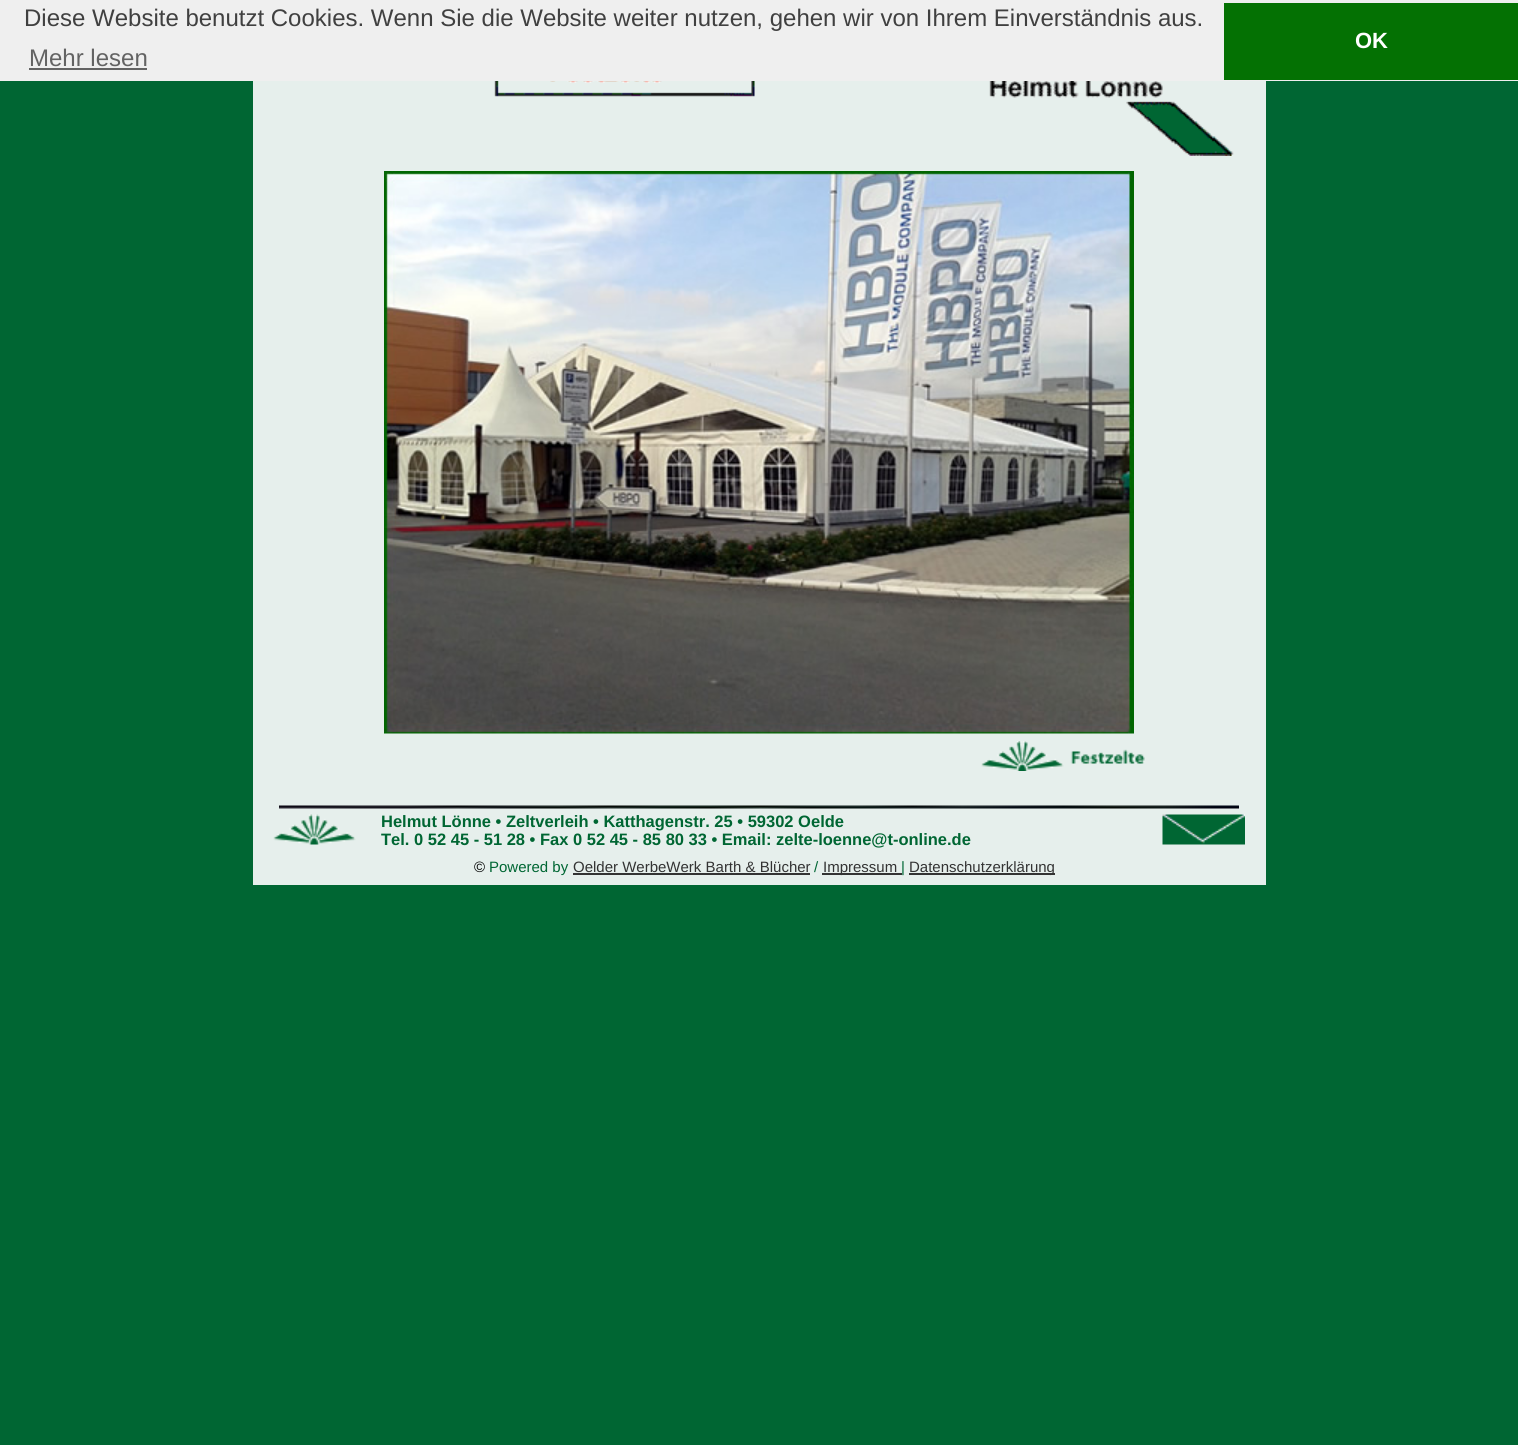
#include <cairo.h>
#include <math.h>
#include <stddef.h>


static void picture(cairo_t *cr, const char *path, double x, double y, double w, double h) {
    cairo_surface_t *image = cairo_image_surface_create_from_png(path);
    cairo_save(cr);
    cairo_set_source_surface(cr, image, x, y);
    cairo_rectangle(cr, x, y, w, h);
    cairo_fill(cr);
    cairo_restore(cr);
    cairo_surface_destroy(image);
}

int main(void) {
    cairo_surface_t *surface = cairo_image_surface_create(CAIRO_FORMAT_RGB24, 1518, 1445);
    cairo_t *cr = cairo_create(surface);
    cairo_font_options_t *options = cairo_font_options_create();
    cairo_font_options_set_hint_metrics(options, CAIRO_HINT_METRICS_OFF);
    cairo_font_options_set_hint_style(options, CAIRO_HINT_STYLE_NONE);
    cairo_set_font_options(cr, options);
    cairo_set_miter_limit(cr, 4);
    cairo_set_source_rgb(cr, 0, 0.4, 0.2);
    cairo_paint(cr);
    cairo_set_source_rgb(cr, 0.937, 0.937, 0.937);
    cairo_rectangle(cr, 0, 0, 1518, 81);
    cairo_fill(cr);
    cairo_select_font_face(cr, "Liberation Sans", CAIRO_FONT_SLANT_NORMAL, CAIRO_FONT_WEIGHT_NORMAL);
    cairo_set_font_size(cr, 24);
    cairo_set_source_rgb(cr, 0.251, 0.251, 0.251);
    cairo_move_to(cr, 24, 26);
    cairo_show_text(cr, "Diese Website benutzt Cookies. Wenn Sie die Website weiter nutzen, gehen wir von Ihrem Einverständnis aus.");
    cairo_set_source_rgb(cr, 0.388, 0.388, 0.388);
    cairo_move_to(cr, 29, 66);
    cairo_show_text(cr, "Mehr lesen");
    cairo_rectangle(cr, 29, 68, 118, 2);
    cairo_fill(cr);
    cairo_set_source_rgb(cr, 0.016, 0.443, 0.012);
    cairo_rectangle(cr, 1224, 3, 294, 77);
    cairo_fill(cr);
    cairo_select_font_face(cr, "Liberation Sans", CAIRO_FONT_SLANT_NORMAL, CAIRO_FONT_WEIGHT_BOLD);
    cairo_set_font_size(cr, 22);
    cairo_set_source_rgb(cr, 1, 1, 1);
    cairo_move_to(cr, 1355, 48);
    cairo_show_text(cr, "OK");
    cairo_set_source_rgb(cr, 0.902, 0.937, 0.925);
    cairo_rectangle(cr, 253, 81, 1013, 804);
    cairo_fill(cr);
    picture(cr, "img1.png", 494, 81, 740, 75);
    picture(cr, "img2.png", 384, 171, 750, 563);
    picture(cr, "img3.png", 981, 741, 164, 30);
    picture(cr, "img4.png", 279, 805, 960, 4);
    picture(cr, "img5.png", 273, 814, 83, 31);
    cairo_set_font_size(cr, 16.5);
    cairo_set_source_rgb(cr, 0, 0.4, 0.2);
    cairo_move_to(cr, 381, 827);
    cairo_show_text(cr, "Helmut Lönne • Zeltverleih • Katthagenstr. 25 • 59302 Oelde");
    cairo_move_to(cr, 381, 845);
    cairo_show_text(cr, "Tel. 0 52 45 - 51 28 • Fax 0 52 45 - 85 80 33 • Email: zelte-loenne@t-online.de");
    picture(cr, "img6.png", 1162, 814, 83, 31);
    cairo_select_font_face(cr, "Liberation Sans", CAIRO_FONT_SLANT_NORMAL, CAIRO_FONT_WEIGHT_NORMAL);
    cairo_set_font_size(cr, 15);
    cairo_set_source_rgb(cr, 0, 0, 0);
    cairo_move_to(cr, 474, 872);
    cairo_show_text(cr, "©");
    cairo_set_source_rgb(cr, 0, 0.4, 0.2);
    cairo_move_to(cr, 489, 872);
    cairo_show_text(cr, "Powered by");
    cairo_set_source_rgb(cr, 0.2, 0.2, 0.2);
    cairo_move_to(cr, 573, 872);
    cairo_show_text(cr, "Oelder WerbeWerk Barth & Blücher");
    cairo_rectangle(cr, 573, 873, 237, 2);
    cairo_fill(cr);
    cairo_set_source_rgb(cr, 0, 0.4, 0.2);
    cairo_move_to(cr, 814, 872);
    cairo_show_text(cr, "/");
    cairo_set_source_rgb(cr, 0.2, 0.2, 0.2);
    cairo_rectangle(cr, 822, 873, 80, 2);
    cairo_fill(cr);
    cairo_move_to(cr, 823, 872);
    cairo_show_text(cr, "Impressum");
    cairo_set_source_rgb(cr, 0, 0.4, 0.2);
    cairo_move_to(cr, 901, 872);
    cairo_show_text(cr, "|");
    cairo_set_source_rgb(cr, 0.2, 0.2, 0.2);
    cairo_rectangle(cr, 909, 873, 146, 2);
    cairo_fill(cr);
    cairo_move_to(cr, 909, 872);
    cairo_show_text(cr, "Datenschutzerklärung");
    cairo_surface_write_to_png(surface, "page.png");
    cairo_font_options_destroy(options);
    cairo_destroy(cr);
    cairo_surface_destroy(surface);
    return 0;
}
